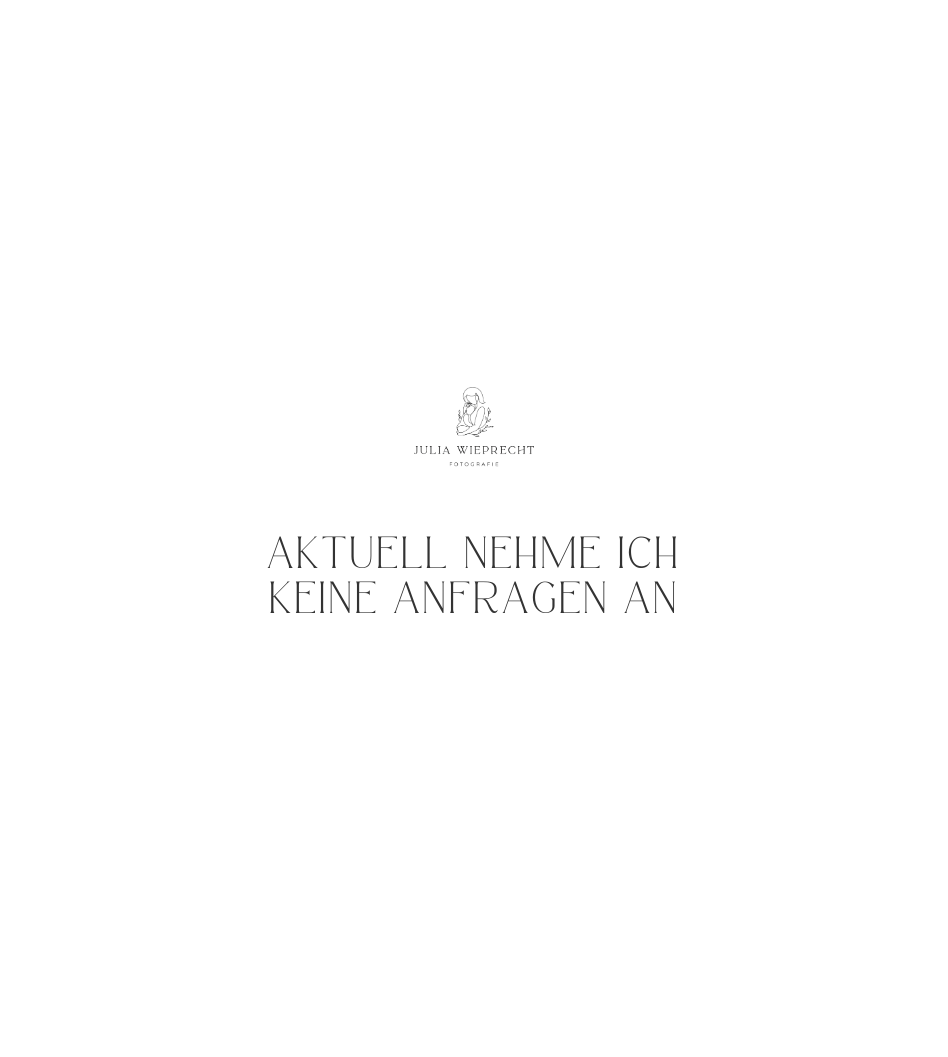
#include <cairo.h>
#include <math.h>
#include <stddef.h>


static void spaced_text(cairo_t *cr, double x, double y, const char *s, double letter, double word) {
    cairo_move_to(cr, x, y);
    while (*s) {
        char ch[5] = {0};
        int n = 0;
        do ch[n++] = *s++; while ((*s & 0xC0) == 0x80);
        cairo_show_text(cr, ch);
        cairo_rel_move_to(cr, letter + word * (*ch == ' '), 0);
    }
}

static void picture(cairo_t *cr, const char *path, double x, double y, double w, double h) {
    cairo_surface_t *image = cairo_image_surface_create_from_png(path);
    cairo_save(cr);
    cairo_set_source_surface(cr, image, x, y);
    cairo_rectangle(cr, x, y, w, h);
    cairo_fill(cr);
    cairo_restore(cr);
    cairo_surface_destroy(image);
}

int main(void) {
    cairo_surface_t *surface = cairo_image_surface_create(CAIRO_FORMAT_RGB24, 948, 1057);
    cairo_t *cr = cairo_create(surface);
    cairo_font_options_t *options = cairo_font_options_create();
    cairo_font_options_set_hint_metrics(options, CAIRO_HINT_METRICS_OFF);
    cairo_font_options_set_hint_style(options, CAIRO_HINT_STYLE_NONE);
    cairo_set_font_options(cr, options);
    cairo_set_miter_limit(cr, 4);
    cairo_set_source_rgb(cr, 1, 1, 1);
    cairo_paint(cr);
    picture(cr, "img1.png", 414, 387, 120, 80);
    cairo_select_font_face(cr, "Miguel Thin", CAIRO_FONT_SLANT_NORMAL, CAIRO_FONT_WEIGHT_NORMAL);
    cairo_set_font_size(cr, 45);
    cairo_set_source_rgb(cr, 0.2, 0.2, 0.2);
    spaced_text(cr, 267, 568, "AKTUELL NEHME ICH", 3, 0);
    spaced_text(cr, 269, 613, "KEINE ANFRAGEN AN", 3, 0);
    cairo_surface_write_to_png(surface, "page.png");
    cairo_font_options_destroy(options);
    cairo_destroy(cr);
    cairo_surface_destroy(surface);
    return 0;
}
